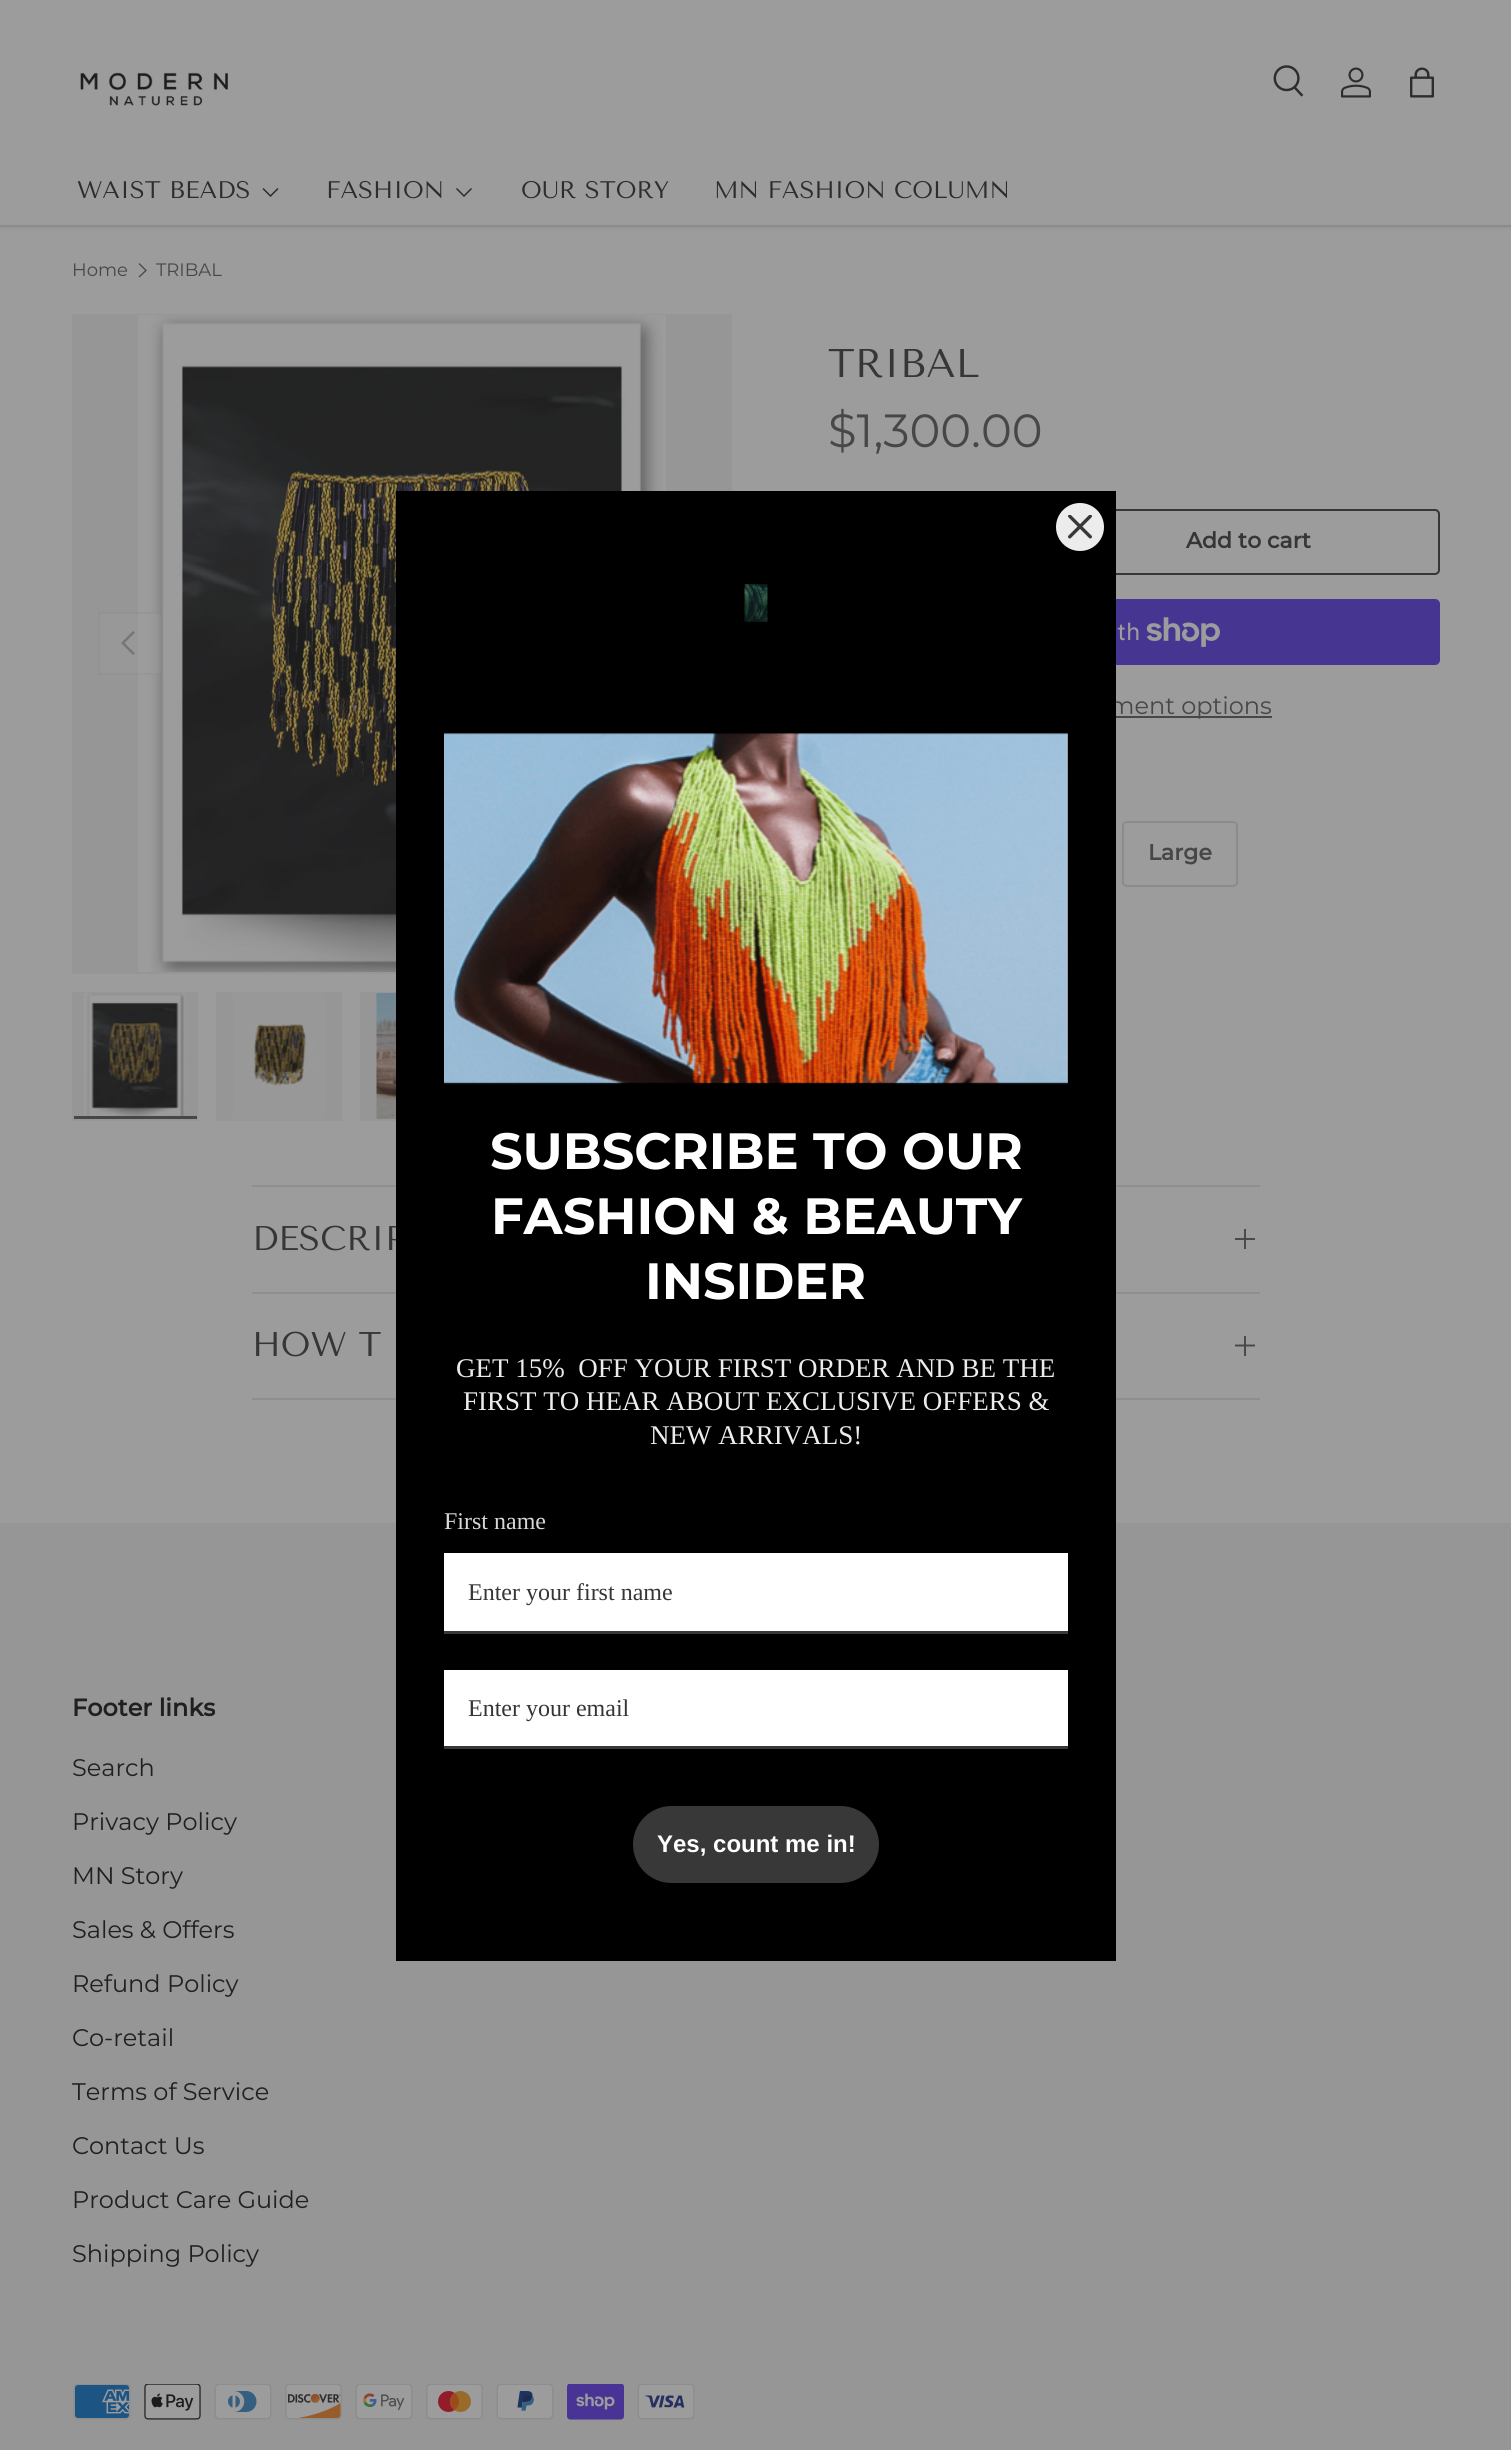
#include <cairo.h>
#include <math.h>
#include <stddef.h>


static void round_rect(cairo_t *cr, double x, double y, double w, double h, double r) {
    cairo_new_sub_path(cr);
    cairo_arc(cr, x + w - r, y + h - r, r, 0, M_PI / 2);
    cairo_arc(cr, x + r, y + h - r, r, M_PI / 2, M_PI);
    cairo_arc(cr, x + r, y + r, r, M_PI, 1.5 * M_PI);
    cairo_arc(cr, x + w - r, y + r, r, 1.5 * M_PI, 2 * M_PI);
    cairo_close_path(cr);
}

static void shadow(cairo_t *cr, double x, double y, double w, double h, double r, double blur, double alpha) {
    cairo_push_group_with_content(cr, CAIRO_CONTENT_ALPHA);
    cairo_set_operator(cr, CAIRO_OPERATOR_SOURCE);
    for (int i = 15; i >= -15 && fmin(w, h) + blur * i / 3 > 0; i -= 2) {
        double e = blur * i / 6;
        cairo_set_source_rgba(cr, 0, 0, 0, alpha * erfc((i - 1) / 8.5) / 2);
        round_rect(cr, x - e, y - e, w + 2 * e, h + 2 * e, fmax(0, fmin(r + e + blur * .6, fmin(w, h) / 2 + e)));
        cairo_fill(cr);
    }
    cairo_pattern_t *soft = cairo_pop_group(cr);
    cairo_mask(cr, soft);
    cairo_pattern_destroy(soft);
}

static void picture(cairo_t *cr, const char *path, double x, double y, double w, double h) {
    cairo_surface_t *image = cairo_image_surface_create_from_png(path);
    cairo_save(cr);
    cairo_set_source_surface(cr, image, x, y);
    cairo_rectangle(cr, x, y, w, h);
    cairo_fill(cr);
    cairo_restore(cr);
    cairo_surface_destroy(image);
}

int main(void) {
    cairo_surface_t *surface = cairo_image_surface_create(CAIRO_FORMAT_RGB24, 1511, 2450);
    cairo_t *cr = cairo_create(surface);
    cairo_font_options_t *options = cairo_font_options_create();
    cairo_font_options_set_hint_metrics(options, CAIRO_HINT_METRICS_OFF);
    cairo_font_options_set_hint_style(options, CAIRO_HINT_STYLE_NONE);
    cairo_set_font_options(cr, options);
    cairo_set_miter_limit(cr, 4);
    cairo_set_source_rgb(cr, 0.612, 0.612, 0.612);
    cairo_paint(cr);
    cairo_set_source_rgb(cr, 0.11, 0.11, 0.11);
    shadow(cr, -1, -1, 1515, 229, 0, 2, 0.08);
    cairo_set_source_rgb(cr, 0.612, 0.612, 0.612);
    cairo_rectangle(cr, 0, 0, 1511, 225);
    cairo_fill(cr);
    picture(cr, "img1.png", 80, 72, 148, 34);
    picture(cr, "img2.png", 1273, 65, 31, 32);
    picture(cr, "img3.png", 1341, 67, 30, 31);
    picture(cr, "img4.png", 1410, 67, 24, 31);
    cairo_select_font_face(cr, "Tenor Sans", CAIRO_FONT_SLANT_NORMAL, CAIRO_FONT_WEIGHT_NORMAL);
    cairo_set_font_size(cr, 24);
    cairo_set_source_rgb(cr, 0.176, 0.176, 0.176);
    cairo_move_to(cr, 77, 198);
    cairo_show_text(cr, "WAIST BEADS");
    cairo_new_path(cr);
    cairo_move_to(cr, 278, 188.5);
    cairo_line_to(cr, 270.5, 196);
    cairo_line_to(cr, 263, 188.5);
    cairo_set_line_width(cr, 1.5);
    cairo_stroke(cr);
    cairo_move_to(cr, 326, 198);
    cairo_show_text(cr, "FASHION");
    cairo_new_path(cr);
    cairo_move_to(cr, 471.5, 188.5);
    cairo_line_to(cr, 464, 196);
    cairo_line_to(cr, 456.5, 188.5);
    cairo_stroke(cr);
    cairo_move_to(cr, 521, 198);
    cairo_show_text(cr, "OUR STORY");
    cairo_move_to(cr, 714, 198);
    cairo_show_text(cr, "MN FASHION COLUMN");
    cairo_set_source_rgb(cr, 0.545, 0.545, 0.545);
    cairo_rectangle(cr, 0, 225, 1511, 2);
    cairo_fill(cr);
    cairo_select_font_face(cr, "Montserrat", CAIRO_FONT_SLANT_NORMAL, CAIRO_FONT_WEIGHT_NORMAL);
    cairo_set_font_size(cr, 18);
    cairo_set_source_rgb(cr, 0.278, 0.278, 0.278);
    cairo_move_to(cr, 72, 276);
    cairo_show_text(cr, "Home");
    cairo_new_path(cr);
    cairo_move_to(cr, 139, 263.5);
    cairo_line_to(cr, 146, 270.5);
    cairo_line_to(cr, 139, 277);
    cairo_set_line_width(cr, 1.3);
    cairo_stroke(cr);
    cairo_move_to(cr, 156, 276);
    cairo_show_text(cr, "TRIBAL");
    cairo_set_source_rgb(cr, 0.588, 0.588, 0.588);
    cairo_rectangle(cr, 72, 314, 660, 660);
    cairo_fill(cr);
    picture(cr, "img5.png", 138, 315, 528, 657);
    cairo_set_source_rgba(cr, 0.612, 0.612, 0.612, 0.4);
    round_rect(cr, 98, 612, 63, 63, 5);
    cairo_fill(cr);
    cairo_rectangle(cr, 99, 613, 61, 61);
    cairo_set_source_rgba(cr, 0.278, 0.278, 0.278, 0.06);
    cairo_set_line_width(cr, 2);
    cairo_stroke(cr);
    cairo_set_source_rgb(cr, 0.463, 0.463, 0.463);
    cairo_new_path(cr);
    cairo_move_to(cr, 121, 643);
    cairo_line_to(cr, 133, 631);
    cairo_line_to(cr, 135, 632.5);
    cairo_line_to(cr, 124.5, 643);
    cairo_line_to(cr, 135, 653.5);
    cairo_line_to(cr, 133, 655);
    cairo_close_path(cr);
    cairo_fill(cr);
    cairo_set_source_rgb(cr, 0.588, 0.588, 0.588);
    cairo_rectangle(cr, 72, 992, 126, 129);
    cairo_fill(cr);
    picture(cr, "img6.png", 84, 993, 102, 123);
    cairo_set_source_rgb(cr, 0.278, 0.278, 0.278);
    cairo_rectangle(cr, 74, 1116, 123, 3);
    cairo_fill(cr);
    cairo_set_source_rgb(cr, 0.588, 0.588, 0.588);
    cairo_rectangle(cr, 216, 992, 126, 129);
    cairo_fill(cr);
    picture(cr, "img7.png", 233, 993, 92, 126);
    cairo_rectangle(cr, 360, 992, 36, 129);
    cairo_fill(cr);
    picture(cr, "img8.png", 376, 993, 20, 126);
    cairo_select_font_face(cr, "Tenor Sans", CAIRO_FONT_SLANT_NORMAL, CAIRO_FONT_WEIGHT_NORMAL);
    cairo_set_font_size(cr, 40);
    cairo_set_source_rgb(cr, 0.212, 0.212, 0.212);
    cairo_move_to(cr, 828, 377);
    cairo_show_text(cr, "TRIBAL");
    cairo_select_font_face(cr, "Montserrat", CAIRO_FONT_SLANT_NORMAL, CAIRO_FONT_WEIGHT_NORMAL);
    cairo_set_font_size(cr, 46.5);
    cairo_set_source_rgb(cr, 0.278, 0.278, 0.278);
    cairo_move_to(cr, 828, 447);
    cairo_show_text(cr, "$1,300.00");
    round_rect(cr, 1059, 510, 380, 64, 4);
    cairo_set_source_rgb(cr, 0.212, 0.212, 0.212);
    cairo_stroke(cr);
    cairo_select_font_face(cr, "Montserrat", CAIRO_FONT_SLANT_NORMAL, CAIRO_FONT_WEIGHT_BOLD);
    cairo_set_font_size(cr, 22);
    cairo_move_to(cr, 1186, 548);
    cairo_show_text(cr, "Add to cart");
    cairo_set_source_rgb(cr, 0.275, 0.212, 0.573);
    round_rect(cr, 828, 599, 612, 66, 5);
    cairo_fill(cr);
    cairo_select_font_face(cr, "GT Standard", CAIRO_FONT_SLANT_NORMAL, CAIRO_FONT_WEIGHT_NORMAL);
    cairo_set_font_size(cr, 24);
    cairo_set_source_rgb(cr, 0.612, 0.612, 0.612);
    cairo_move_to(cr, 1117, 640);
    cairo_show_text(cr, "th");
    picture(cr, "img9.png", 1146, 617, 74, 30);
    cairo_set_source_rgb(cr, 0.278, 0.278, 0.278);
    cairo_rectangle(cr, 1116, 716, 156, 2);
    cairo_fill(cr);
    cairo_select_font_face(cr, "Montserrat", CAIRO_FONT_SLANT_NORMAL, CAIRO_FONT_WEIGHT_NORMAL);
    cairo_move_to(cr, 1109, 714);
    cairo_show_text(cr, "ment options");
    round_rect(cr, 1123, 822, 114, 64, 4);
    cairo_set_source_rgb(cr, 0.545, 0.545, 0.545);
    cairo_stroke(cr);
    cairo_select_font_face(cr, "Montserrat", CAIRO_FONT_SLANT_NORMAL, CAIRO_FONT_WEIGHT_BOLD);
    cairo_set_font_size(cr, 22);
    cairo_set_source_rgb(cr, 0.278, 0.278, 0.278);
    cairo_move_to(cr, 1148, 860);
    cairo_show_text(cr, "Large");
    cairo_set_source_rgb(cr, 0.561, 0.561, 0.561);
    cairo_rectangle(cr, 252, 1185, 1008, 2);
    cairo_fill(cr);
    cairo_rectangle(cr, 252, 1292, 1008, 2);
    cairo_fill(cr);
    cairo_select_font_face(cr, "Tenor Sans", CAIRO_FONT_SLANT_NORMAL, CAIRO_FONT_WEIGHT_NORMAL);
    cairo_set_font_size(cr, 34.25);
    cairo_set_source_rgb(cr, 0.212, 0.212, 0.212);
    cairo_move_to(cr, 252, 1250);
    cairo_show_text(cr, "DESCRIP");
    picture(cr, "img10.png", 1235, 1229, 20, 20);
    cairo_set_source_rgb(cr, 0.561, 0.561, 0.561);
    cairo_rectangle(cr, 252, 1398, 1008, 2);
    cairo_fill(cr);
    cairo_set_source_rgb(cr, 0.212, 0.212, 0.212);
    cairo_move_to(cr, 252, 1356);
    cairo_show_text(cr, "HOW T");
    picture(cr, "img11.png", 1235, 1336, 20, 20);
    cairo_set_source_rgb(cr, 0.588, 0.588, 0.588);
    cairo_rectangle(cr, 0, 1523, 1511, 927);
    cairo_fill(cr);
    cairo_set_source_rgb(cr, 0, 0, 0);
    cairo_rectangle(cr, 396, 491, 720, 1470);
    cairo_fill(cr);
    cairo_set_source_rgb(cr, 0.925, 0.925, 0.925);
    cairo_arc(cr, 1080, 527, 24, 0, 2 * M_PI);
    cairo_fill(cr);
    picture(cr, "img12.png", 1068, 515, 24, 24);
    picture(cr, "img13.png", 744, 584, 24, 38);
    picture(cr, "img14.png", 444, 733, 624, 352);
    cairo_select_font_face(cr, "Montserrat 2", CAIRO_FONT_SLANT_NORMAL, CAIRO_FONT_WEIGHT_BOLD);
    cairo_set_font_size(cr, 51);
    cairo_set_source_rgb(cr, 1, 1, 1);
    cairo_move_to(cr, 490, 1169);
    cairo_show_text(cr, "SUBSCRIBE TO OUR");
    cairo_move_to(cr, 491, 1234);
    cairo_show_text(cr, "FASHION & BEAUTY");
    cairo_move_to(cr, 645, 1299);
    cairo_show_text(cr, "INSIDER");
    cairo_select_font_face(cr, "Liberation Serif", CAIRO_FONT_SLANT_NORMAL, CAIRO_FONT_WEIGHT_NORMAL);
    cairo_set_font_size(cr, 27);
    cairo_set_source_rgb(cr, 0.925, 0.925, 0.925);
    cairo_move_to(cr, 456, 1377);
    cairo_show_text(cr, "GET 15%  OFF YOUR FIRST ORDER AND BE THE");
    cairo_move_to(cr, 463, 1410);
    cairo_show_text(cr, "FIRST TO HEAR ABOUT EXCLUSIVE OFFERS &");
    cairo_move_to(cr, 650, 1444);
    cairo_show_text(cr, "NEW ARRIVALS!");
    cairo_set_font_size(cr, 24);
    cairo_set_source_rgb(cr, 0.843, 0.843, 0.843);
    cairo_move_to(cr, 444, 1529);
    cairo_show_text(cr, "First name");
    cairo_set_source_rgb(cr, 1, 1, 1);
    cairo_rectangle(cr, 444, 1553, 624, 78);
    cairo_fill(cr);
    cairo_set_source_rgb(cr, 0.22, 0.22, 0.22);
    cairo_rectangle(cr, 444, 1631, 624, 3);
    cairo_fill(cr);
    cairo_set_source_rgb(cr, 0.212, 0.212, 0.212);
    cairo_move_to(cr, 468, 1600);
    cairo_show_text(cr, "Enter your first name");
    cairo_set_source_rgb(cr, 1, 1, 1);
    cairo_rectangle(cr, 444, 1670, 624, 76);
    cairo_fill(cr);
    cairo_set_source_rgb(cr, 0.22, 0.22, 0.22);
    cairo_rectangle(cr, 444, 1746, 624, 3);
    cairo_fill(cr);
    cairo_set_source_rgb(cr, 0.212, 0.212, 0.212);
    cairo_move_to(cr, 468, 1716);
    cairo_show_text(cr, "Enter your email");
    cairo_set_source_rgb(cr, 0.22, 0.22, 0.22);
    round_rect(cr, 633, 1806, 246, 77, 38.5);
    cairo_fill(cr);
    cairo_select_font_face(cr, "Liberation Sans", CAIRO_FONT_SLANT_NORMAL, CAIRO_FONT_WEIGHT_BOLD);
    cairo_set_source_rgb(cr, 1, 1, 1);
    cairo_move_to(cr, 657, 1852);
    cairo_show_text(cr, "Yes, count me in!");
    cairo_select_font_face(cr, "Montserrat", CAIRO_FONT_SLANT_NORMAL, CAIRO_FONT_WEIGHT_BOLD);
    cairo_set_source_rgb(cr, 0.125, 0.125, 0.125);
    cairo_move_to(cr, 72, 1716);
    cairo_show_text(cr, "Footer links");
    cairo_select_font_face(cr, "Montserrat", CAIRO_FONT_SLANT_NORMAL, CAIRO_FONT_WEIGHT_NORMAL);
    cairo_move_to(cr, 72, 1776);
    cairo_show_text(cr, "Search");
    cairo_move_to(cr, 72, 1830);
    cairo_show_text(cr, "Privacy Policy");
    cairo_move_to(cr, 72, 1884);
    cairo_show_text(cr, "MN Story");
    cairo_move_to(cr, 72, 1938);
    cairo_show_text(cr, "Sales & Offers");
    cairo_move_to(cr, 72, 1992);
    cairo_show_text(cr, "Refund Policy");
    cairo_move_to(cr, 72, 2046);
    cairo_show_text(cr, "Co-retail");
    cairo_move_to(cr, 72, 2100);
    cairo_show_text(cr, "Terms of Service");
    cairo_move_to(cr, 72, 2154);
    cairo_show_text(cr, "Contact Us");
    cairo_move_to(cr, 72, 2208);
    cairo_show_text(cr, "Product Care Guide");
    cairo_move_to(cr, 72, 2262);
    cairo_show_text(cr, "Shipping Policy");
    picture(cr, "img15.png", 73, 2384, 58, 36);
    picture(cr, "img16.png", 144, 2384, 57, 36);
    picture(cr, "img17.png", 214, 2384, 58, 36);
    picture(cr, "img18.png", 285, 2384, 57, 36);
    picture(cr, "img19.png", 355, 2384, 58, 36);
    picture(cr, "img20.png", 426, 2384, 57, 36);
    picture(cr, "img21.png", 496, 2384, 58, 36);
    picture(cr, "img22.png", 567, 2384, 57, 36);
    picture(cr, "img23.png", 637, 2384, 58, 36);
    cairo_surface_write_to_png(surface, "page.png");
    cairo_font_options_destroy(options);
    cairo_destroy(cr);
    cairo_surface_destroy(surface);
    return 0;
}
